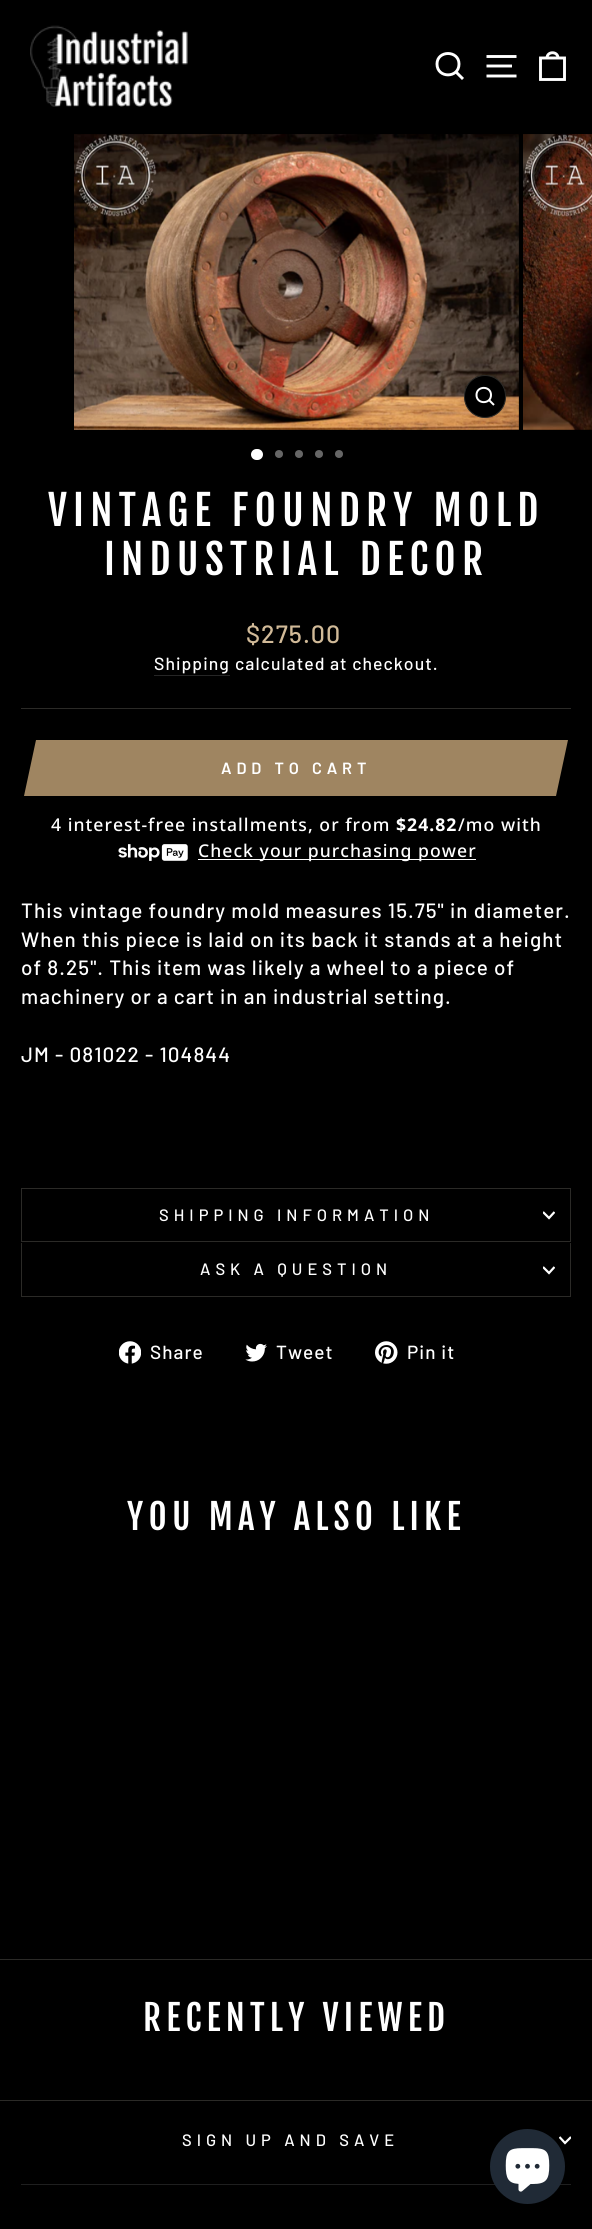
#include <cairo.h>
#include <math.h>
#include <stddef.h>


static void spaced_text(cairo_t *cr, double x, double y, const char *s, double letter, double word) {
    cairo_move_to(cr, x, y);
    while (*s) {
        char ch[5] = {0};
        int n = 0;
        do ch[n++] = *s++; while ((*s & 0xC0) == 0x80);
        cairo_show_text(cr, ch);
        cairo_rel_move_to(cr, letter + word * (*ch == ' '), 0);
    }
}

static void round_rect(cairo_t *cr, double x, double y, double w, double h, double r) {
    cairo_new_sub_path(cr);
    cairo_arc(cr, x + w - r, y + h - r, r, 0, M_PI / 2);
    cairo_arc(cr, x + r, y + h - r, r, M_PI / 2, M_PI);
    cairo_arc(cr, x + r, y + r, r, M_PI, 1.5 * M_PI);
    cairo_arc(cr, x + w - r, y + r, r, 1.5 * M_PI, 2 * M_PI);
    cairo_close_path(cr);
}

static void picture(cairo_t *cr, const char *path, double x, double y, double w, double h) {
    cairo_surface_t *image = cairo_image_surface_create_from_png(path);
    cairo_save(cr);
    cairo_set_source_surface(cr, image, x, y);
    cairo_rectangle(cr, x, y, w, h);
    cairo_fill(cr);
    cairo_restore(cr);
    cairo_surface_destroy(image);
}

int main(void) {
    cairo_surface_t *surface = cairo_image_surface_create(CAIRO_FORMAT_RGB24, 592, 2229);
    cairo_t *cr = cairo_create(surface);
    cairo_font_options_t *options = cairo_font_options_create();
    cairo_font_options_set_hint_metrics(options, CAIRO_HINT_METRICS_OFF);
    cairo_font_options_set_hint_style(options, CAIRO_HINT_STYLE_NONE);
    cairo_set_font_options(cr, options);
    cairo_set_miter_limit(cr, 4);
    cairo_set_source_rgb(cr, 0, 0, 0);
    cairo_paint(cr);
    picture(cr, "img1.png", 30, 25, 158, 82);
    cairo_new_path(cr);
    cairo_move_to(cr, 459, 64);
    cairo_curve_to(cr, 459, 78.5, 437, 78.5, 437, 64);
    cairo_curve_to(cr, 437, 50, 459, 50, 459, 64);
    cairo_close_path(cr);
    cairo_move_to(cr, 463, 79);
    cairo_line_to(cr, 456, 72);
    cairo_set_source_rgb(cr, 1, 1, 1);
    cairo_set_line_width(cr, 2.9);
    cairo_stroke(cr);
    cairo_new_path(cr);
    cairo_move_to(cr, 486.5, 56.5);
    cairo_line_to(cr, 516.5, 56.5);
    cairo_move_to(cr, 486.5, 66);
    cairo_line_to(cr, 512, 66);
    cairo_move_to(cr, 486.5, 76);
    cairo_line_to(cr, 516.5, 76);
    cairo_stroke(cr);
    cairo_new_path(cr);
    cairo_move_to(cr, 540.5, 58);
    cairo_line_to(cr, 564.5, 58);
    cairo_line_to(cr, 564.5, 79.5);
    cairo_line_to(cr, 540.5, 79.5);
    cairo_close_path(cr);
    cairo_move_to(cr, 547, 58);
    cairo_curve_to(cr, 547, 51, 558, 51, 558, 58);
    cairo_stroke(cr);
    picture(cr, "img2.png", 74, 134, 445, 296);
    cairo_set_source_rgb(cr, 0, 0, 0);
    round_rect(cr, 464.5, 375.5, 41, 42, 20.5);
    cairo_fill_preserve(cr);
    cairo_set_source_rgb(cr, 0.169, 0.165, 0.153);
    cairo_set_line_width(cr, 1);
    cairo_stroke(cr);
    cairo_new_path(cr);
    cairo_move_to(cr, 491, 395);
    cairo_curve_to(cr, 491, 404.5, 476.5, 404.5, 476.5, 395);
    cairo_curve_to(cr, 476.5, 385.5, 491, 385.5, 491, 395);
    cairo_close_path(cr);
    cairo_move_to(cr, 494, 405);
    cairo_line_to(cr, 489, 400);
    cairo_set_source_rgb(cr, 1, 1, 1);
    cairo_set_line_width(cr, 2);
    cairo_stroke(cr);
    picture(cr, "img3.png", 523, 134, 69, 296);
    round_rect(cr, 251, 449, 12, 11, 5.5);
    cairo_fill(cr);
    cairo_set_source_rgb(cr, 0.4, 0.4, 0.4);
    cairo_arc(cr, 279, 454, 4, 0, 2 * M_PI);
    cairo_fill(cr);
    cairo_arc(cr, 299, 454, 4, 0, 2 * M_PI);
    cairo_fill(cr);
    cairo_arc(cr, 319, 454, 4, 0, 2 * M_PI);
    cairo_fill(cr);
    cairo_arc(cr, 339, 454, 4, 0, 2 * M_PI);
    cairo_fill(cr);
    cairo_select_font_face(cr, "Fjalla One", CAIRO_FONT_SLANT_NORMAL, CAIRO_FONT_WEIGHT_NORMAL);
    cairo_set_font_size(cr, 41);
    cairo_set_source_rgb(cr, 1, 1, 1);
    spaced_text(cr, 48, 526, "VINTAGE FOUNDRY MOLD", 6.2, 0);
    spaced_text(cr, 104, 575, "INDUSTRIAL DECOR", 6.2, 0);
    cairo_select_font_face(cr, "Barlow Medium", CAIRO_FONT_SLANT_NORMAL, CAIRO_FONT_WEIGHT_NORMAL);
    cairo_set_font_size(cr, 25);
    cairo_set_source_rgb(cr, 0.82, 0.729, 0.596);
    spaced_text(cr, 246, 643, "$275.00", 1.03, 0);
    cairo_set_source_rgb(cr, 0.149, 0.149, 0.149);
    cairo_rectangle(cr, 154, 675, 76, 1);
    cairo_fill(cr);
    cairo_set_font_size(cr, 17.6);
    cairo_set_source_rgb(cr, 1, 1, 1);
    spaced_text(cr, 154, 670, "Shipping", 1.03, 0);
    spaced_text(cr, 235, 670, "calculated at checkout.", 1.03, 0);
    cairo_set_source_rgb(cr, 0.169, 0.165, 0.153);
    cairo_rectangle(cr, 21, 708, 550, 1);
    cairo_fill(cr);
    cairo_set_source_rgb(cr, 0.624, 0.522, 0.38);
    cairo_rectangle(cr, 49, 740, 494, 56);
    cairo_fill(cr);
    cairo_new_path(cr);
    cairo_move_to(cr, 36, 740);
    cairo_line_to(cr, 61, 740);
    cairo_line_to(cr, 49, 796);
    cairo_line_to(cr, 24, 796);
    cairo_close_path(cr);
    cairo_fill(cr);
    cairo_select_font_face(cr, "Barlow SemiBold", CAIRO_FONT_SLANT_NORMAL, CAIRO_FONT_WEIGHT_NORMAL);
    cairo_set_font_size(cr, 16.25);
    cairo_set_source_rgb(cr, 1, 1, 1);
    spaced_text(cr, 221, 774, "ADD TO CART", 4.9, 0);
    cairo_set_source_rgb(cr, 0.624, 0.522, 0.38);
    cairo_new_path(cr);
    cairo_move_to(cr, 543, 740);
    cairo_line_to(cr, 568, 740);
    cairo_line_to(cr, 556, 796);
    cairo_line_to(cr, 531, 796);
    cairo_close_path(cr);
    cairo_fill(cr);
    cairo_select_font_face(cr, "Noto Sans Medium", CAIRO_FONT_SLANT_NORMAL, CAIRO_FONT_WEIGHT_NORMAL);
    cairo_set_font_size(cr, 17.6);
    cairo_set_source_rgb(cr, 1, 1, 1);
    spaced_text(cr, 51, 831, "4 interest-free installments, or from", 1.03, 0);
    cairo_select_font_face(cr, "Noto Sans", CAIRO_FONT_SLANT_NORMAL, CAIRO_FONT_WEIGHT_BOLD);
    spaced_text(cr, 396, 831, "$24.82", 1.03, 0);
    cairo_select_font_face(cr, "Noto Sans Medium", CAIRO_FONT_SLANT_NORMAL, CAIRO_FONT_WEIGHT_NORMAL);
    spaced_text(cr, 458, 831, "/mo with", 1.03, 0);
    picture(cr, "img4.png", 118, 844, 70, 17);
    cairo_rectangle(cr, 198, 859, 278, 1);
    cairo_fill(cr);
    spaced_text(cr, 198, 857, "Check your purchasing power", 1.03, 0);
    cairo_select_font_face(cr, "Barlow Medium", CAIRO_FONT_SLANT_NORMAL, CAIRO_FONT_WEIGHT_NORMAL);
    cairo_set_font_size(cr, 20.7);
    spaced_text(cr, 21, 918, "This vintage foundry mold measures 15.75\" in diameter.", 1.03, 0);
    spaced_text(cr, 21, 947, "When this piece is laid on its back it stands at a height", 1.03, 0);
    spaced_text(cr, 21, 975, "of 8.25\". This item was likely a wheel to a piece of", 1.03, 0);
    spaced_text(cr, 21, 1004, "machinery or a cart in an industrial setting.", 1.03, 0);
    spaced_text(cr, 21, 1062, "JM - 081022 - 104844", 1.03, 0);
    cairo_set_source_rgb(cr, 0.169, 0.165, 0.153);
    cairo_rectangle(cr, 21, 1241, 550, 1);
    cairo_fill(cr);
    cairo_rectangle(cr, 21, 1188, 550, 1);
    cairo_fill(cr);
    cairo_rectangle(cr, 570, 1188, 1, 53);
    cairo_fill(cr);
    cairo_rectangle(cr, 21, 1188, 1, 53);
    cairo_fill(cr);
    cairo_set_font_size(cr, 16.5);
    cairo_set_source_rgb(cr, 1, 1, 1);
    spaced_text(cr, 159, 1221, "SHIPPING INFORMATION", 5, 0);
    cairo_save(cr);
    cairo_rectangle(cr, 543, 1209, 12, 12);
    cairo_clip(cr);
    cairo_new_path(cr);
    cairo_move_to(cr, 543, 1212);
    cairo_line_to(cr, 549, 1218);
    cairo_line_to(cr, 554.5, 1212);
    cairo_set_line_width(cr, 2.2);
    cairo_stroke(cr);
    cairo_restore(cr);
    cairo_set_source_rgb(cr, 0.169, 0.165, 0.153);
    cairo_rectangle(cr, 21, 1296, 550, 1);
    cairo_fill(cr);
    cairo_rectangle(cr, 570, 1243, 1, 53);
    cairo_fill(cr);
    cairo_rectangle(cr, 21, 1243, 1, 53);
    cairo_fill(cr);
    cairo_set_source_rgb(cr, 1, 1, 1);
    spaced_text(cr, 200, 1275, "ASK A QUESTION", 5, 0);
    cairo_save(cr);
    cairo_rectangle(cr, 543, 1264, 12, 12);
    cairo_clip(cr);
    cairo_new_path(cr);
    cairo_move_to(cr, 543, 1267);
    cairo_line_to(cr, 549, 1273);
    cairo_line_to(cr, 554.5, 1267);
    cairo_set_line_width(cr, 2.2);
    cairo_stroke(cr);
    cairo_restore(cr);
    picture(cr, "img5.png", 119, 1341, 22, 23);
    cairo_set_font_size(cr, 19);
    spaced_text(cr, 150, 1359, "Share", 1.03, 0);
    picture(cr, "img6.png", 245, 1343, 22, 19);
    spaced_text(cr, 276, 1359, "Tweet", 1.03, 0);
    picture(cr, "img7.png", 375, 1341, 23, 23);
    spaced_text(cr, 407, 1359, "Pin it", 1.03, 0);
    cairo_select_font_face(cr, "Fjalla One", CAIRO_FONT_SLANT_NORMAL, CAIRO_FONT_WEIGHT_NORMAL);
    cairo_set_font_size(cr, 34.9);
    spaced_text(cr, 127, 1530, "YOU MAY ALSO LIKE", 5.25, 0);
    cairo_set_source_rgb(cr, 0.169, 0.165, 0.153);
    cairo_rectangle(cr, 0, 1959, 592, 1);
    cairo_fill(cr);
    cairo_set_source_rgb(cr, 1, 1, 1);
    spaced_text(cr, 143, 2031, "RECENTLY VIEWED", 5.25, 0);
    cairo_set_source_rgb(cr, 0.169, 0.165, 0.153);
    cairo_rectangle(cr, 0, 2100, 592, 1);
    cairo_fill(cr);
    cairo_select_font_face(cr, "Barlow Medium", CAIRO_FONT_SLANT_NORMAL, CAIRO_FONT_WEIGHT_NORMAL);
    cairo_set_font_size(cr, 16.5);
    cairo_set_source_rgb(cr, 1, 1, 1);
    spaced_text(cr, 182, 2146, "SIGN UP AND SAVE", 5, 0);
    cairo_save(cr);
    cairo_rectangle(cr, 559, 2134, 12, 12);
    cairo_clip(cr);
    cairo_new_path(cr);
    cairo_move_to(cr, 559.5, 2137);
    cairo_line_to(cr, 565, 2143);
    cairo_line_to(cr, 571, 2137);
    cairo_set_line_width(cr, 2.2);
    cairo_stroke(cr);
    cairo_restore(cr);
    cairo_set_source_rgb(cr, 0.122, 0.122, 0.122);
    cairo_rectangle(cr, 21, 2184, 550, 1);
    cairo_fill(cr);
    cairo_set_source_rgb(cr, 0.125, 0.165, 0.212);
    cairo_arc(cr, 527.5, 2166.5, 37.5, 0, 2 * M_PI);
    cairo_fill(cr);
    picture(cr, "img8.png", 505, 2148, 45, 44);
    cairo_surface_write_to_png(surface, "page.png");
    cairo_font_options_destroy(options);
    cairo_destroy(cr);
    cairo_surface_destroy(surface);
    return 0;
}
